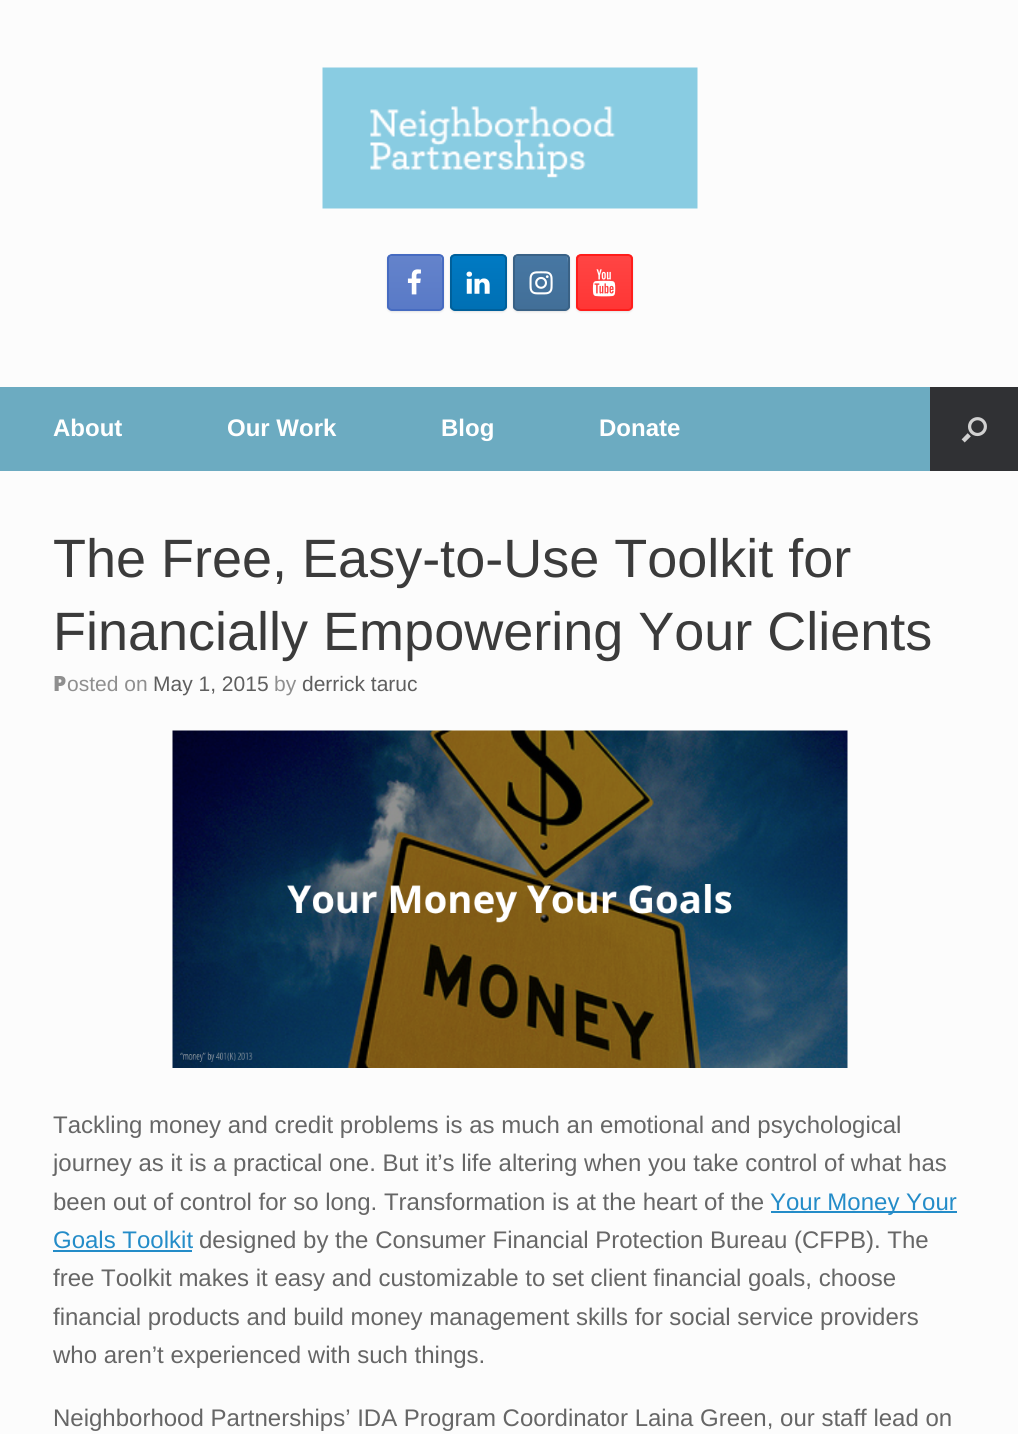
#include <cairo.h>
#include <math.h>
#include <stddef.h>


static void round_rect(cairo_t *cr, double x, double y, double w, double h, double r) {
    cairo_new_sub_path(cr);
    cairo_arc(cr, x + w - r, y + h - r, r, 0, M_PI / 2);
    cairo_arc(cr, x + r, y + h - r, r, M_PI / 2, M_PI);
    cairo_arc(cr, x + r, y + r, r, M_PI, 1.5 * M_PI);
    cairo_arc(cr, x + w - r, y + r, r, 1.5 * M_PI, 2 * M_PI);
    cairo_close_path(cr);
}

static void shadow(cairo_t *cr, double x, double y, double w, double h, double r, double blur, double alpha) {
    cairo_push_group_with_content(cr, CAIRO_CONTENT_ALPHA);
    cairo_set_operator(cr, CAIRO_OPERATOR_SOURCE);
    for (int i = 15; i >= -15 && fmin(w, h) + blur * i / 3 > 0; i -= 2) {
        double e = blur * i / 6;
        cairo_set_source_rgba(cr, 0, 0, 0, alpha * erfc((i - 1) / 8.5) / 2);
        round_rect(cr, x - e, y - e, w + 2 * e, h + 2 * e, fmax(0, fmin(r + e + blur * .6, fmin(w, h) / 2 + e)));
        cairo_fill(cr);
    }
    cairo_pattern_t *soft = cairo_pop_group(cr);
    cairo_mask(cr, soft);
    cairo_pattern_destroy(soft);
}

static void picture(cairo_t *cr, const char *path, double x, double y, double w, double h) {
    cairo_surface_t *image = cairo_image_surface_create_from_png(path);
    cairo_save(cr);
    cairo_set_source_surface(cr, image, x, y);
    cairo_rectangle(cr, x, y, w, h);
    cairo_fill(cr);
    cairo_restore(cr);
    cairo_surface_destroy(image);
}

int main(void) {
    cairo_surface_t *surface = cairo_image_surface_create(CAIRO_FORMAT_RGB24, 1018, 1434);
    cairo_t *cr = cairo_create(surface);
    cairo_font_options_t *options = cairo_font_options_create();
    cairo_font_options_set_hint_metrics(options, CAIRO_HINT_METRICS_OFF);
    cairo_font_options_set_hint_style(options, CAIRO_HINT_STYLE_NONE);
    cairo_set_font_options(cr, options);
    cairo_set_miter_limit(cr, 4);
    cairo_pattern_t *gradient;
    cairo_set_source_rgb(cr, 0.988, 0.988, 0.988);
    cairo_paint(cr);
    picture(cr, "img1.png", 322, 67, 376, 142);
    cairo_set_source_rgb(cr, 0, 0, 0);
    shadow(cr, 387, 255, 57, 57, 5, 1, 0.1);
    cairo_save(cr);
    round_rect(cr, 387, 254, 57, 57, 5);
    cairo_clip(cr);
    gradient = cairo_pattern_create_linear(389, 309, 389, 255);
    cairo_pattern_add_color_stop_rgba(gradient, 0, 0.349, 0.478, 0.78, 1);
    cairo_pattern_add_color_stop_rgba(gradient, 1, 0.392, 0.514, 0.796, 1);
    cairo_set_source(cr, gradient);
    cairo_pattern_destroy(gradient);
    cairo_rectangle(cr, 387, 255, 57, 54);
    cairo_fill(cr);
    cairo_restore(cr);
    cairo_set_source_rgba(cr, 1, 1, 1, 0.2);
    cairo_new_path(cr);
    cairo_move_to(cr, 392, 256);
    cairo_line_to(cr, 440, 256);
    cairo_curve_to(cr, 443, 258, 442, 274, 442, 276);
    cairo_line_to(cr, 442, 308);
    cairo_curve_to(cr, 443, 308, 443, 307, 443, 306);
    cairo_line_to(cr, 443, 258);
    cairo_curve_to(cr, 443, 256, 442, 255, 440, 255);
    cairo_line_to(cr, 392, 255);
    cairo_curve_to(cr, 391, 255, 389, 256, 389, 257);
    cairo_close_path(cr);
    cairo_fill(cr);
    round_rect(cr, 388, 255, 55, 55, 4);
    cairo_set_source_rgb(cr, 0.275, 0.42, 0.757);
    cairo_stroke(cr);
    picture(cr, "img2.png", 407, 269, 14, 26);
    cairo_set_source_rgb(cr, 0, 0, 0);
    shadow(cr, 450, 255, 57, 57, 5, 1, 0.1);
    cairo_save(cr);
    round_rect(cr, 450, 254, 57, 57, 5);
    cairo_clip(cr);
    gradient = cairo_pattern_create_linear(452, 309, 452, 255);
    cairo_pattern_add_color_stop_rgba(gradient, 0, 0, 0.439, 0.706, 1);
    cairo_pattern_add_color_stop_rgba(gradient, 1, 0, 0.478, 0.765, 1);
    cairo_set_source(cr, gradient);
    cairo_pattern_destroy(gradient);
    cairo_rectangle(cr, 450, 255, 57, 54);
    cairo_fill(cr);
    cairo_restore(cr);
    round_rect(cr, 451, 255, 55, 55, 4);
    cairo_set_source_rgb(cr, 0, 0.376, 0.608);
    cairo_stroke(cr);
    picture(cr, "img3.png", 466, 271, 24, 23);
    cairo_set_source_rgb(cr, 0, 0, 0);
    shadow(cr, 513, 255, 57, 57, 5, 1, 0.1);
    cairo_save(cr);
    round_rect(cr, 513, 254, 57, 57, 5);
    cairo_clip(cr);
    gradient = cairo_pattern_create_linear(515, 309, 515, 255);
    cairo_pattern_add_color_stop_rgba(gradient, 0, 0.259, 0.435, 0.596, 1);
    cairo_pattern_add_color_stop_rgba(gradient, 1, 0.278, 0.467, 0.639, 1);
    cairo_set_source(cr, gradient);
    cairo_pattern_destroy(gradient);
    cairo_rectangle(cr, 513, 255, 57, 54);
    cairo_fill(cr);
    cairo_restore(cr);
    cairo_set_source_rgba(cr, 1, 1, 1, 0.2);
    cairo_new_path(cr);
    cairo_move_to(cr, 518, 256);
    cairo_line_to(cr, 566, 256);
    cairo_curve_to(cr, 569, 258, 568, 274, 568, 276);
    cairo_line_to(cr, 568, 308);
    cairo_curve_to(cr, 569, 308, 569, 307, 569, 306);
    cairo_line_to(cr, 569, 258);
    cairo_curve_to(cr, 569, 256, 568, 255, 566, 255);
    cairo_line_to(cr, 518, 255);
    cairo_curve_to(cr, 517, 255, 515, 256, 515, 257);
    cairo_close_path(cr);
    cairo_fill(cr);
    round_rect(cr, 514, 255, 55, 55, 4);
    cairo_set_source_rgb(cr, 0.227, 0.384, 0.525);
    cairo_stroke(cr);
    picture(cr, "img4.png", 529, 271, 24, 24);
    cairo_set_source_rgb(cr, 0, 0, 0);
    shadow(cr, 576, 255, 57, 57, 5, 1, 0.1);
    cairo_save(cr);
    round_rect(cr, 576, 254, 57, 57, 5);
    cairo_clip(cr);
    gradient = cairo_pattern_create_linear(578, 309, 578, 255);
    cairo_pattern_add_color_stop_rgba(gradient, 0, 1, 0.212, 0.208, 1);
    cairo_pattern_add_color_stop_rgba(gradient, 1, 1, 0.271, 0.267, 1);
    cairo_set_source(cr, gradient);
    cairo_pattern_destroy(gradient);
    cairo_rectangle(cr, 576, 255, 57, 54);
    cairo_fill(cr);
    cairo_restore(cr);
    round_rect(cr, 577, 255, 55, 55, 4);
    cairo_set_source_rgb(cr, 1, 0.114, 0.106);
    cairo_stroke(cr);
    picture(cr, "img5.png", 592, 269, 24, 28);
    cairo_set_source_rgb(cr, 0.424, 0.671, 0.757);
    cairo_rectangle(cr, 0, 387, 930, 84);
    cairo_fill(cr);
    cairo_select_font_face(cr, "Liberation Sans", CAIRO_FONT_SLANT_NORMAL, CAIRO_FONT_WEIGHT_BOLD);
    cairo_set_font_size(cr, 24);
    cairo_set_source_rgb(cr, 1, 1, 1);
    cairo_move_to(cr, 53, 436);
    cairo_show_text(cr, "About");
    cairo_move_to(cr, 227, 436);
    cairo_show_text(cr, "Our Work");
    cairo_move_to(cr, 441, 436);
    cairo_show_text(cr, "Blog");
    cairo_move_to(cr, 599, 436);
    cairo_show_text(cr, "Donate");
    cairo_set_source_rgb(cr, 0.188, 0.192, 0.204);
    cairo_rectangle(cr, 930, 387, 88, 84);
    cairo_fill(cr);
    picture(cr, "img6.png", 961, 417, 26, 26);
    cairo_select_font_face(cr, "Liberation Sans", CAIRO_FONT_SLANT_NORMAL, CAIRO_FONT_WEIGHT_NORMAL);
    cairo_set_font_size(cr, 54);
    cairo_set_source_rgb(cr, 0.231, 0.231, 0.231);
    cairo_move_to(cr, 53, 577);
    cairo_show_text(cr, "The Free, Easy-to-Use Toolkit for");
    cairo_move_to(cr, 53, 650);
    cairo_show_text(cr, "Financially Empowering Your Clients");
    cairo_select_font_face(cr, "Noto Sans Black", CAIRO_FONT_SLANT_NORMAL, CAIRO_FONT_WEIGHT_NORMAL);
    cairo_set_font_size(cr, 21);
    cairo_set_source_rgb(cr, 0.561, 0.561, 0.561);
    cairo_move_to(cr, 53, 691);
    cairo_show_text(cr, "P");
    cairo_select_font_face(cr, "Liberation Sans", CAIRO_FONT_SLANT_NORMAL, CAIRO_FONT_WEIGHT_NORMAL);
    cairo_move_to(cr, 67, 691);
    cairo_show_text(cr, "osted on");
    cairo_set_source_rgb(cr, 0.369, 0.369, 0.369);
    cairo_move_to(cr, 153, 691);
    cairo_show_text(cr, "May 1, 2015");
    cairo_set_source_rgb(cr, 0.561, 0.561, 0.561);
    cairo_move_to(cr, 274, 691);
    cairo_show_text(cr, "by");
    cairo_set_source_rgb(cr, 0.369, 0.369, 0.369);
    cairo_move_to(cr, 302, 691);
    cairo_show_text(cr, "derrick taruc");
    picture(cr, "img7.png", 172, 730, 676, 338);
    cairo_set_font_size(cr, 24);
    cairo_set_source_rgb(cr, 0.4, 0.4, 0.4);
    cairo_move_to(cr, 53, 1133);
    cairo_show_text(cr, "Tackling money and credit problems is as much an emotional and psychological");
    cairo_move_to(cr, 53, 1171);
    cairo_show_text(cr, "journey as it is a practical one. But it’s life altering when you take control of what has");
    cairo_move_to(cr, 53, 1210);
    cairo_show_text(cr, "been out of control for so long. Transformation is at the heart of the");
    cairo_set_source_rgb(cr, 0.141, 0.549, 0.784);
    cairo_rectangle(cr, 771, 1211, 186, 2);
    cairo_fill(cr);
    cairo_move_to(cr, 770, 1210);
    cairo_show_text(cr, "Your Money Your");
    cairo_move_to(cr, 53, 1248);
    cairo_show_text(cr, "Goals Toolkit");
    cairo_rectangle(cr, 53, 1250, 139, 2);
    cairo_fill(cr);
    cairo_set_source_rgb(cr, 0.4, 0.4, 0.4);
    cairo_move_to(cr, 199, 1248);
    cairo_show_text(cr, "designed by the Consumer Financial Protection Bureau (CFPB). The");
    cairo_move_to(cr, 53, 1286);
    cairo_show_text(cr, "free Toolkit makes it easy and customizable to set client financial goals, choose");
    cairo_move_to(cr, 53, 1325);
    cairo_show_text(cr, "financial products and build money management skills for social service providers");
    cairo_move_to(cr, 53, 1363);
    cairo_show_text(cr, "who aren’t experienced with such things.");
    cairo_move_to(cr, 53, 1426);
    cairo_show_text(cr, "Neighborhood Partnerships’ IDA Program Coordinator Laina Green, our staff lead on");
    cairo_surface_write_to_png(surface, "page.png");
    cairo_font_options_destroy(options);
    cairo_destroy(cr);
    cairo_surface_destroy(surface);
    return 0;
}
